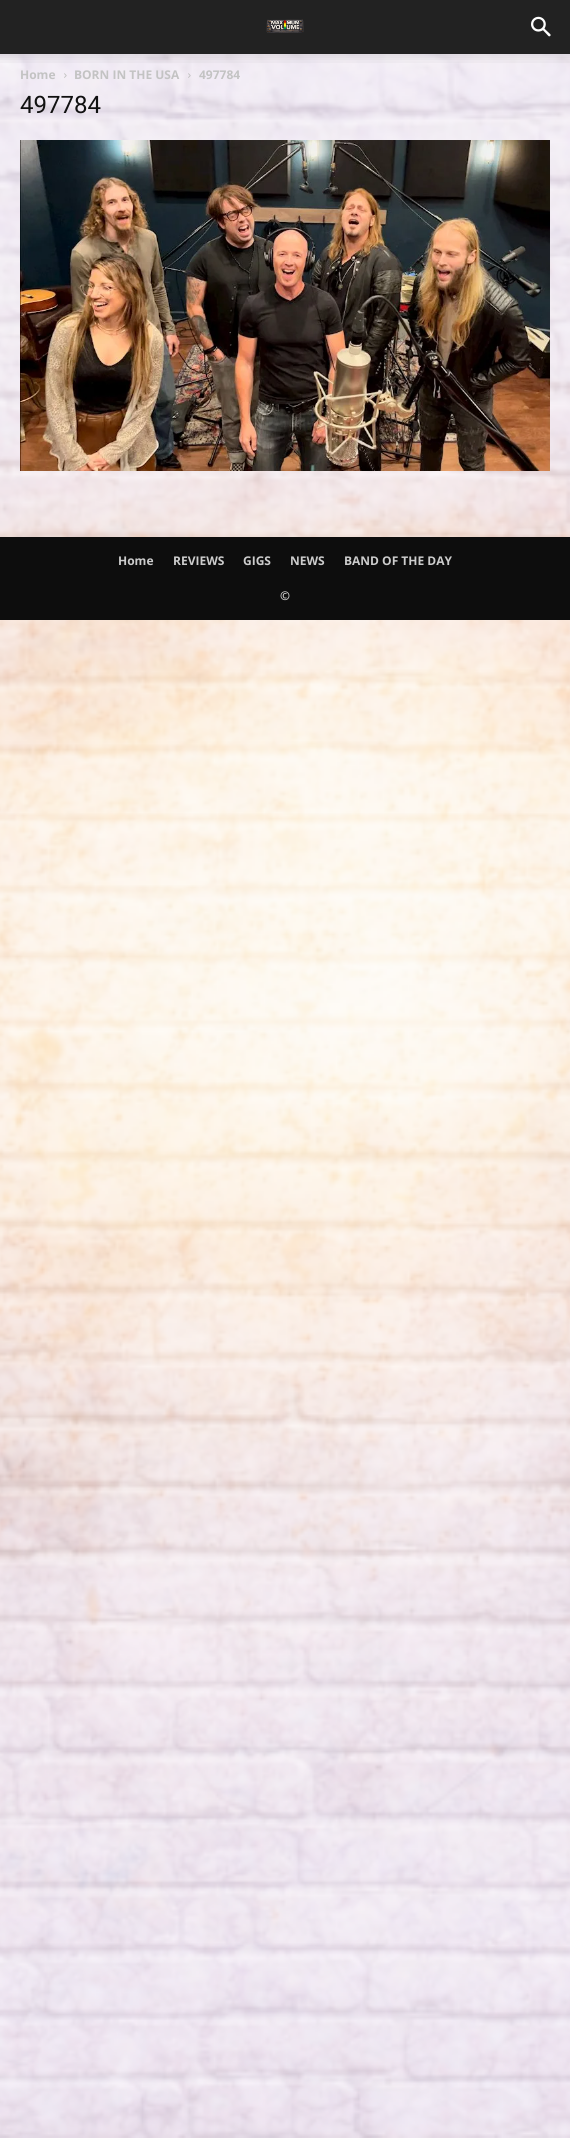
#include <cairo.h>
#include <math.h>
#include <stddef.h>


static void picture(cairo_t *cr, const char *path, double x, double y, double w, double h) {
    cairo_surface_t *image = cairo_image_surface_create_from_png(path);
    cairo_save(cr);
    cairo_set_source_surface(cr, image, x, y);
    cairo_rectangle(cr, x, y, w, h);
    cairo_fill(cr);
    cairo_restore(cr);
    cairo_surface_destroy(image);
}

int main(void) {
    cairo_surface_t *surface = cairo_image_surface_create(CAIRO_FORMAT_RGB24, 570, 2138);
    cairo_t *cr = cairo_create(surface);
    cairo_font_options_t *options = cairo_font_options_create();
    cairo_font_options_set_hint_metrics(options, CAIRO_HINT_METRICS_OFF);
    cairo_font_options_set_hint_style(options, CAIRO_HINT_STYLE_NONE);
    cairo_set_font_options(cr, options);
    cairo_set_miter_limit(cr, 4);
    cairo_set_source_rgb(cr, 1, 1, 1);
    cairo_paint(cr);
    picture(cr, "img1.png", 0, 54, 570, 2084);
    cairo_set_source_rgb(cr, 0.133, 0.133, 0.133);
    cairo_rectangle(cr, 0, 0, 570, 54);
    cairo_fill(cr);
    picture(cr, "img2.png", 266, 19, 38, 14);
    picture(cr, "img3.png", 531, 16, 20, 21);
    picture(cr, "img4.png", 0, 54, 570, 9);
    cairo_select_font_face(cr, "Open Sans", CAIRO_FONT_SLANT_NORMAL, CAIRO_FONT_WEIGHT_BOLD);
    cairo_set_font_size(cr, 12);
    cairo_set_source_rgb(cr, 0.765, 0.765, 0.765);
    cairo_move_to(cr, 20, 79);
    cairo_show_text(cr, "Home");
    picture(cr, "img5.png", 64, 73, 3, 5);
    cairo_move_to(cr, 74, 79);
    cairo_show_text(cr, "BORN IN THE USA");
    picture(cr, "img6.png", 188, 73, 3, 5);
    cairo_move_to(cr, 199, 79);
    cairo_show_text(cr, "497784");
    cairo_select_font_face(cr, "Roboto", CAIRO_FONT_SLANT_NORMAL, CAIRO_FONT_WEIGHT_NORMAL);
    cairo_set_font_size(cr, 24);
    cairo_set_source_rgb(cr, 0.067, 0.067, 0.067);
    cairo_move_to(cr, 20, 113);
    cairo_show_text(cr, "497784");
    picture(cr, "img7.png", 20, 140, 530, 331);
    cairo_set_source_rgb(cr, 0.051, 0.051, 0.051);
    cairo_rectangle(cr, 0, 537, 570, 83);
    cairo_fill(cr);
    cairo_select_font_face(cr, "Open Sans", CAIRO_FONT_SLANT_NORMAL, CAIRO_FONT_WEIGHT_BOLD);
    cairo_set_font_size(cr, 12);
    cairo_set_source_rgb(cr, 0.8, 0.8, 0.8);
    cairo_move_to(cr, 118, 565);
    cairo_show_text(cr, "Home");
    cairo_move_to(cr, 173, 565);
    cairo_show_text(cr, "REVIEWS");
    cairo_move_to(cr, 243, 565);
    cairo_show_text(cr, "GIGS");
    cairo_move_to(cr, 290, 565);
    cairo_show_text(cr, "NEWS");
    cairo_move_to(cr, 344, 565);
    cairo_show_text(cr, "BAND OF THE DAY");
    cairo_move_to(cr, 280, 600);
    cairo_show_text(cr, "©");
    cairo_surface_write_to_png(surface, "page.png");
    cairo_font_options_destroy(options);
    cairo_destroy(cr);
    cairo_surface_destroy(surface);
    return 0;
}
